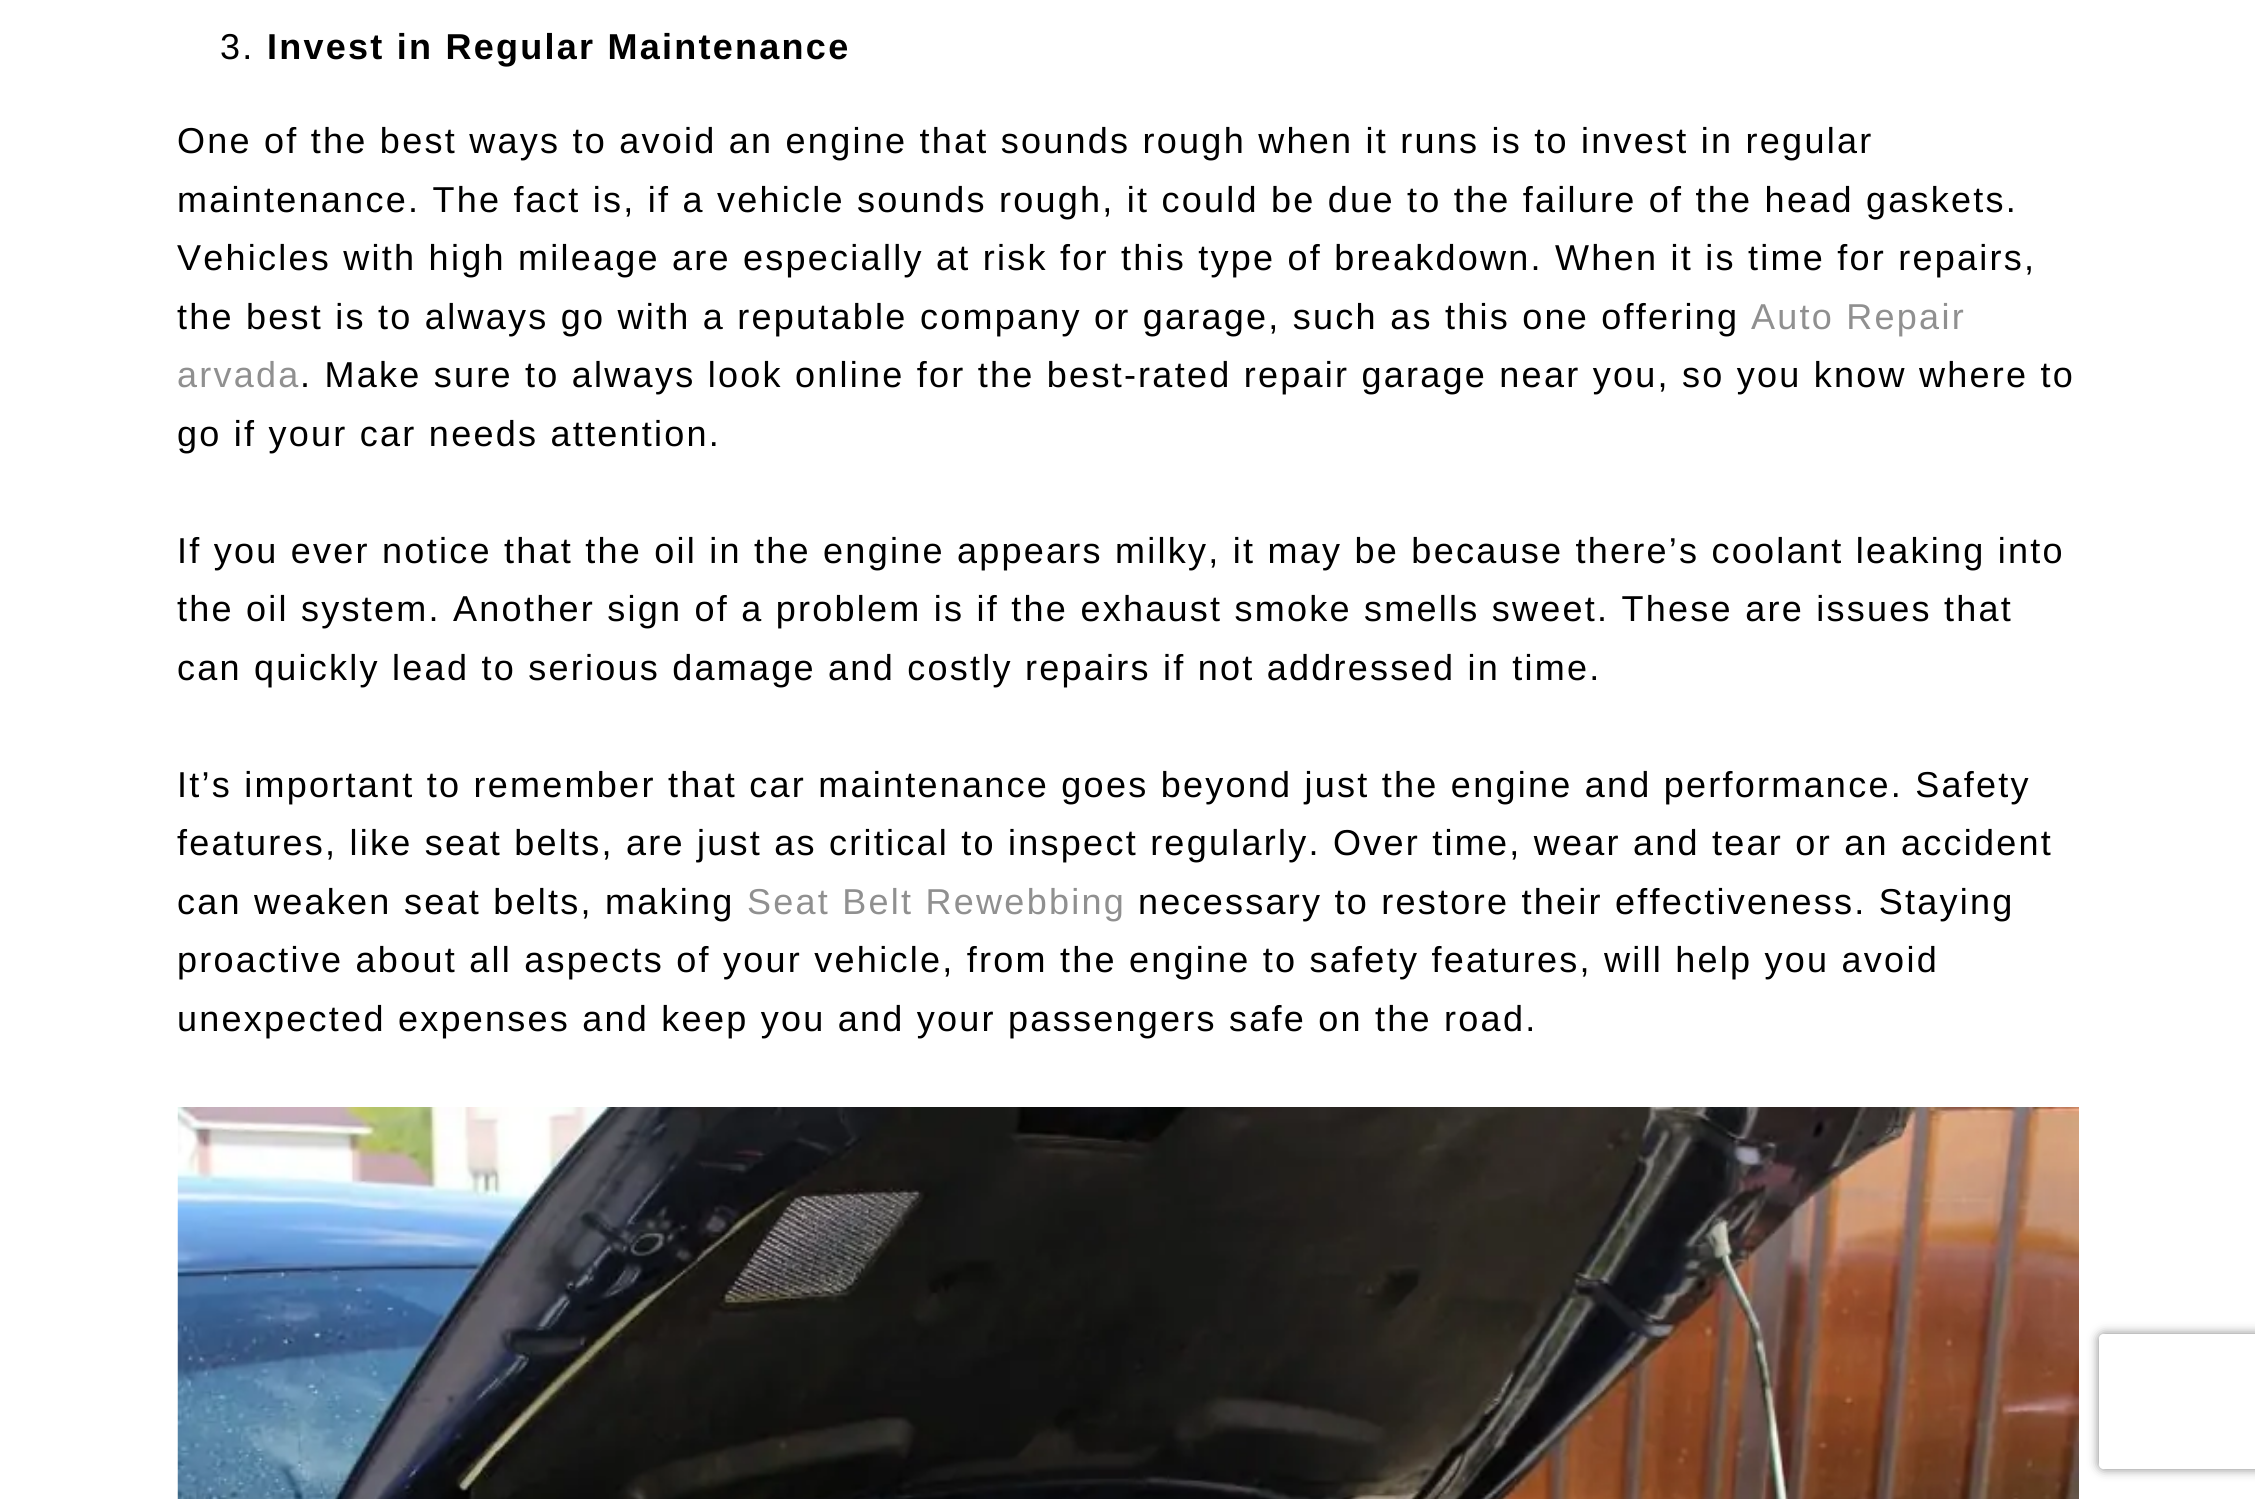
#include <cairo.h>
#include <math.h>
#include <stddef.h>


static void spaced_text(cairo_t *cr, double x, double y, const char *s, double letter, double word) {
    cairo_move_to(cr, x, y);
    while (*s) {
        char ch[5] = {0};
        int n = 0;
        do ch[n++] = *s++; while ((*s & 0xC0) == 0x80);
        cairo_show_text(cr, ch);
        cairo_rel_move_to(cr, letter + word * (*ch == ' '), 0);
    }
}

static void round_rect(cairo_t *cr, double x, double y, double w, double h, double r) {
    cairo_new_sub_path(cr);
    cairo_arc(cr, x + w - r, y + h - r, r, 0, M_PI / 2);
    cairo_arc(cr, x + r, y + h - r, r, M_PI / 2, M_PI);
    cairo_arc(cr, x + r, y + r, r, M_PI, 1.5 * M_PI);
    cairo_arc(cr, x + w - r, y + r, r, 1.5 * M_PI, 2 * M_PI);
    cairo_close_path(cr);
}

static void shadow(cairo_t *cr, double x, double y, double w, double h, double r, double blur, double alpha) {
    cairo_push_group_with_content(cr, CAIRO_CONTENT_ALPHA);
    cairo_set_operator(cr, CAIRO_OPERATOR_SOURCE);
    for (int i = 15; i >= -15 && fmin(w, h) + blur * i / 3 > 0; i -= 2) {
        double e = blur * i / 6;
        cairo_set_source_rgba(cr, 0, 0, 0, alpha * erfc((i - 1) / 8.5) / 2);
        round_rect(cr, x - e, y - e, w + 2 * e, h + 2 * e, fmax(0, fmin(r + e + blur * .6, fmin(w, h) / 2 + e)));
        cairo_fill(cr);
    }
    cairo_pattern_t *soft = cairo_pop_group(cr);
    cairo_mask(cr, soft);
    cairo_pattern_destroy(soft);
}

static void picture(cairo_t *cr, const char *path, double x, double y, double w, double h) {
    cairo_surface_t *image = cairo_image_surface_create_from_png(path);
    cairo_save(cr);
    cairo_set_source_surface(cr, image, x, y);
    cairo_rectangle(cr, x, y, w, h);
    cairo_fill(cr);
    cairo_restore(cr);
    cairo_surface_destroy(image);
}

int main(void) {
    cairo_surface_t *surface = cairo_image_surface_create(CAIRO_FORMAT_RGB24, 2255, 1499);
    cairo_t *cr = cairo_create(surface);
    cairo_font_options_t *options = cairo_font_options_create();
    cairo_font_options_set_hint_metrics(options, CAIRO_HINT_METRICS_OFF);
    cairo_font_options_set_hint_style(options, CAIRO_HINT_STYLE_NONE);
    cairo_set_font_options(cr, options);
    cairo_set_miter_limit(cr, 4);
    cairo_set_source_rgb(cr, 1, 1, 1);
    cairo_paint(cr);
    cairo_select_font_face(cr, "Liberation Sans", CAIRO_FONT_SLANT_NORMAL, CAIRO_FONT_WEIGHT_NORMAL);
    cairo_set_font_size(cr, 36);
    cairo_set_source_rgb(cr, 0, 0, 0);
    spaced_text(cr, 220, 59, "3.", 2.25, 0);
    cairo_select_font_face(cr, "Liberation Sans", CAIRO_FONT_SLANT_NORMAL, CAIRO_FONT_WEIGHT_BOLD);
    spaced_text(cr, 267, 59, "Invest in Regular Maintenance", 2.25, 0);
    cairo_select_font_face(cr, "Liberation Sans", CAIRO_FONT_SLANT_NORMAL, CAIRO_FONT_WEIGHT_NORMAL);
    spaced_text(cr, 177, 153, "One of the best ways to avoid an engine that sounds rough when it runs is to invest in regular", 2.25, 0);
    spaced_text(cr, 177, 212, "maintenance. The fact is, if a vehicle sounds rough, it could be due to the failure of the head gaskets.", 2.25, 0);
    spaced_text(cr, 177, 270, "Vehicles with high mileage are especially at risk for this type of breakdown. When it is time for repairs,", 2.25, 0);
    spaced_text(cr, 177, 329, "the best is to always go with a reputable company or garage, such as this one offering", 2.25, 0);
    cairo_set_source_rgb(cr, 0.565, 0.565, 0.565);
    spaced_text(cr, 1751, 329, "Auto Repair", 2.25, 0);
    spaced_text(cr, 177, 387, "arvada", 2.25, 0);
    cairo_set_source_rgb(cr, 0, 0, 0);
    spaced_text(cr, 300, 387, ". Make sure to always look online for the best-rated repair garage near you, so you know where to", 2.25, 0);
    spaced_text(cr, 177, 446, "go if your car needs attention.", 2.25, 0);
    spaced_text(cr, 177, 563, "If you ever notice that the oil in the engine appears milky, it may be because there’s coolant leaking into", 2.25, 0);
    spaced_text(cr, 177, 621, "the oil system. Another sign of a problem is if the exhaust smoke smells sweet. These are issues that", 2.25, 0);
    spaced_text(cr, 177, 680, "can quickly lead to serious damage and costly repairs if not addressed in time.", 2.25, 0);
    spaced_text(cr, 177, 797, "It’s important to remember that car maintenance goes beyond just the engine and performance. Safety", 2.25, 0);
    spaced_text(cr, 177, 855, "features, like seat belts, are just as critical to inspect regularly. Over time, wear and tear or an accident", 2.25, 0);
    spaced_text(cr, 177, 914, "can weaken seat belts, making", 2.25, 0);
    cairo_set_source_rgb(cr, 0.565, 0.565, 0.565);
    spaced_text(cr, 747, 914, "Seat Belt Rewebbing", 2.25, 0);
    cairo_set_source_rgb(cr, 0, 0, 0);
    spaced_text(cr, 1138, 914, "necessary to restore their effectiveness. Staying", 2.25, 0);
    spaced_text(cr, 177, 972, "proactive about all aspects of your vehicle, from the engine to safety features, will help you avoid", 2.25, 0);
    spaced_text(cr, 177, 1031, "unexpected expenses and keep you and your passengers safe on the road.", 2.25, 0);
    picture(cr, "img1.png", 177, 1107, 1902, 392);
    cairo_save(cr);
    cairo_set_fill_rule(cr, CAIRO_FILL_RULE_EVEN_ODD);
    cairo_new_path(cr);
    cairo_move_to(cr, 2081, 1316);
    cairo_line_to(cr, 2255, 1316);
    cairo_line_to(cr, 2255, 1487);
    cairo_line_to(cr, 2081, 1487);
    cairo_close_path(cr);
    cairo_move_to(cr, 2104, 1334);
    cairo_line_to(cr, 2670, 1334);
    cairo_curve_to(cr, 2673, 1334, 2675, 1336, 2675, 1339);
    cairo_line_to(cr, 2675, 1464);
    cairo_curve_to(cr, 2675, 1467, 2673, 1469, 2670, 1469);
    cairo_line_to(cr, 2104, 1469);
    cairo_curve_to(cr, 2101, 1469, 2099, 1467, 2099, 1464);
    cairo_line_to(cr, 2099, 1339);
    cairo_curve_to(cr, 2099, 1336, 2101, 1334, 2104, 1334);
    cairo_close_path(cr);
    cairo_clip(cr);
    cairo_set_source_rgb(cr, 0.502, 0.502, 0.502);
    shadow(cr, 2099, 1334, 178, 135, 5, 5.5, 1);
    cairo_restore(cr);
    cairo_surface_write_to_png(surface, "page.png");
    cairo_font_options_destroy(options);
    cairo_destroy(cr);
    cairo_surface_destroy(surface);
    return 0;
}
